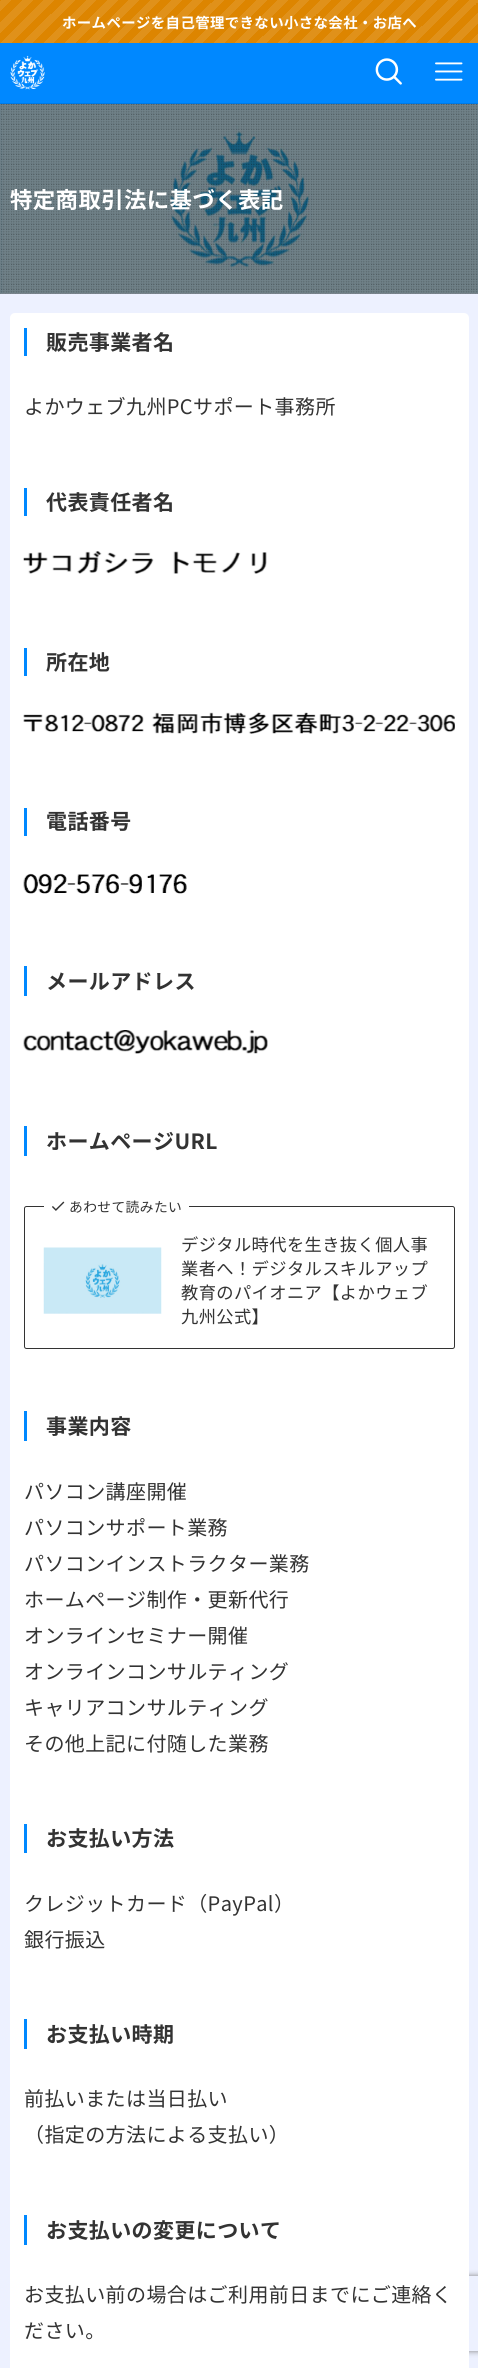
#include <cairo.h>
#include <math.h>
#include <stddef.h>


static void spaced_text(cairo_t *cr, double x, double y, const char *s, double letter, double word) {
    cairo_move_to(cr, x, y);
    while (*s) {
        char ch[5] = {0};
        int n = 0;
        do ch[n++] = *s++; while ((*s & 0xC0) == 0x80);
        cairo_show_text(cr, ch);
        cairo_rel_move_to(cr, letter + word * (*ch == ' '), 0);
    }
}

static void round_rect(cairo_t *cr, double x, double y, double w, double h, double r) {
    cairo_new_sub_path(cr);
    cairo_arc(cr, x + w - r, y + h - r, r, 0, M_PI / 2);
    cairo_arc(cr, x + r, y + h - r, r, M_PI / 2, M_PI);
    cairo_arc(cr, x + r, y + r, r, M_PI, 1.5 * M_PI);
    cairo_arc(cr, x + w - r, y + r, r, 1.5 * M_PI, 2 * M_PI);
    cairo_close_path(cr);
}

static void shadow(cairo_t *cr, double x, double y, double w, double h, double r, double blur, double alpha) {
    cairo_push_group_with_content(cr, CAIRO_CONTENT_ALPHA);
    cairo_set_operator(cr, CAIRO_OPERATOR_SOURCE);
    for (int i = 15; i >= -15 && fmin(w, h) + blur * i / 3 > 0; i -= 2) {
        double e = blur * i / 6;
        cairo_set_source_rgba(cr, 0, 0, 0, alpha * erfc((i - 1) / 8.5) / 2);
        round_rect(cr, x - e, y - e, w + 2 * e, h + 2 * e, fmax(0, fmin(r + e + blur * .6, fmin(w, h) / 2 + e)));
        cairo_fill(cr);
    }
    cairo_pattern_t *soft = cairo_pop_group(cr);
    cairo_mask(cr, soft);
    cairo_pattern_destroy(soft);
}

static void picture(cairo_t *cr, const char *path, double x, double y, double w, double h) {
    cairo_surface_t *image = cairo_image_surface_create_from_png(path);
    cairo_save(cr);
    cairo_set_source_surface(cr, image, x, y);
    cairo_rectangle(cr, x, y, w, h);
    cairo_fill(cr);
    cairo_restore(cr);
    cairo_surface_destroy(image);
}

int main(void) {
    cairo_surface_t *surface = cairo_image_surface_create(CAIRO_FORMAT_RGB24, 478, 2368);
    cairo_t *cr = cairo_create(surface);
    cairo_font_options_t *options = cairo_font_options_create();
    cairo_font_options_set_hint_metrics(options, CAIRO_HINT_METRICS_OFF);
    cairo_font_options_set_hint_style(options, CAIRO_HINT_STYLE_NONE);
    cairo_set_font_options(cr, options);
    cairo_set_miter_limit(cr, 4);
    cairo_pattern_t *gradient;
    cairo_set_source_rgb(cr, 0.929, 0.945, 1);
    cairo_paint(cr);
    cairo_set_source_rgb(cr, 0.529, 0.541, 0.569);
    cairo_rectangle(cr, 0, 293, 478, 1);
    cairo_fill(cr);
    gradient = cairo_pattern_create_linear(370, 152, 105, -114);
    cairo_pattern_add_color_stop_rgba(gradient, 0, 0.878, 0.569, 0.102, 1);
    cairo_pattern_add_color_stop_rgba(gradient, 0.02, 0.878, 0.569, 0.102, 1);
    cairo_pattern_add_color_stop_rgba(gradient, 0.02, 0.867, 0.522, 0, 1);
    cairo_pattern_add_color_stop_rgba(gradient, 0.04, 0.867, 0.522, 0, 1);
    cairo_pattern_add_color_stop_rgba(gradient, 0.04, 0.878, 0.569, 0.102, 1);
    cairo_pattern_add_color_stop_rgba(gradient, 0.06, 0.878, 0.569, 0.102, 1);
    cairo_pattern_add_color_stop_rgba(gradient, 0.06, 0.867, 0.522, 0, 1);
    cairo_pattern_add_color_stop_rgba(gradient, 0.08, 0.867, 0.522, 0, 1);
    cairo_pattern_add_color_stop_rgba(gradient, 0.08, 0.878, 0.569, 0.102, 1);
    cairo_pattern_add_color_stop_rgba(gradient, 0.1, 0.878, 0.569, 0.102, 1);
    cairo_pattern_add_color_stop_rgba(gradient, 0.1, 0.867, 0.522, 0, 1);
    cairo_pattern_add_color_stop_rgba(gradient, 0.12, 0.867, 0.522, 0, 1);
    cairo_pattern_add_color_stop_rgba(gradient, 0.12, 0.878, 0.569, 0.102, 1);
    cairo_pattern_add_color_stop_rgba(gradient, 0.14, 0.878, 0.569, 0.102, 1);
    cairo_pattern_add_color_stop_rgba(gradient, 0.14, 0.867, 0.522, 0, 1);
    cairo_pattern_add_color_stop_rgba(gradient, 0.16, 0.867, 0.522, 0, 1);
    cairo_pattern_add_color_stop_rgba(gradient, 0.16, 0.878, 0.569, 0.102, 1);
    cairo_pattern_add_color_stop_rgba(gradient, 0.18, 0.878, 0.569, 0.102, 1);
    cairo_pattern_add_color_stop_rgba(gradient, 0.18, 0.867, 0.522, 0, 1);
    cairo_pattern_add_color_stop_rgba(gradient, 0.2, 0.867, 0.522, 0, 1);
    cairo_pattern_add_color_stop_rgba(gradient, 0.2, 0.878, 0.569, 0.102, 1);
    cairo_pattern_add_color_stop_rgba(gradient, 0.22, 0.878, 0.569, 0.102, 1);
    cairo_pattern_add_color_stop_rgba(gradient, 0.22, 0.867, 0.522, 0, 1);
    cairo_pattern_add_color_stop_rgba(gradient, 0.24, 0.867, 0.522, 0, 1);
    cairo_pattern_add_color_stop_rgba(gradient, 0.24, 0.878, 0.569, 0.102, 1);
    cairo_pattern_add_color_stop_rgba(gradient, 0.26, 0.878, 0.569, 0.102, 1);
    cairo_pattern_add_color_stop_rgba(gradient, 0.26, 0.867, 0.522, 0, 1);
    cairo_pattern_add_color_stop_rgba(gradient, 0.28, 0.867, 0.522, 0, 1);
    cairo_pattern_add_color_stop_rgba(gradient, 0.28, 0.878, 0.569, 0.102, 1);
    cairo_pattern_add_color_stop_rgba(gradient, 0.3, 0.878, 0.569, 0.102, 1);
    cairo_pattern_add_color_stop_rgba(gradient, 0.3, 0.867, 0.522, 0, 1);
    cairo_pattern_add_color_stop_rgba(gradient, 0.32, 0.867, 0.522, 0, 1);
    cairo_pattern_add_color_stop_rgba(gradient, 0.32, 0.878, 0.569, 0.102, 1);
    cairo_pattern_add_color_stop_rgba(gradient, 0.34, 0.878, 0.569, 0.102, 1);
    cairo_pattern_add_color_stop_rgba(gradient, 0.34, 0.867, 0.522, 0, 1);
    cairo_pattern_add_color_stop_rgba(gradient, 0.36, 0.867, 0.522, 0, 1);
    cairo_pattern_add_color_stop_rgba(gradient, 0.36, 0.878, 0.569, 0.102, 1);
    cairo_pattern_add_color_stop_rgba(gradient, 0.38, 0.878, 0.569, 0.102, 1);
    cairo_pattern_add_color_stop_rgba(gradient, 0.38, 0.867, 0.522, 0, 1);
    cairo_pattern_add_color_stop_rgba(gradient, 0.4, 0.867, 0.522, 0, 1);
    cairo_pattern_add_color_stop_rgba(gradient, 0.4, 0.878, 0.569, 0.102, 1);
    cairo_pattern_add_color_stop_rgba(gradient, 0.42, 0.878, 0.569, 0.102, 1);
    cairo_pattern_add_color_stop_rgba(gradient, 0.42, 0.867, 0.522, 0, 1);
    cairo_pattern_add_color_stop_rgba(gradient, 0.44, 0.867, 0.522, 0, 1);
    cairo_pattern_add_color_stop_rgba(gradient, 0.44, 0.878, 0.569, 0.102, 1);
    cairo_pattern_add_color_stop_rgba(gradient, 0.46, 0.878, 0.569, 0.102, 1);
    cairo_pattern_add_color_stop_rgba(gradient, 0.46, 0.867, 0.522, 0, 1);
    cairo_pattern_add_color_stop_rgba(gradient, 0.48, 0.867, 0.522, 0, 1);
    cairo_pattern_add_color_stop_rgba(gradient, 0.48, 0.878, 0.569, 0.102, 1);
    cairo_pattern_add_color_stop_rgba(gradient, 0.5, 0.878, 0.569, 0.102, 1);
    cairo_pattern_add_color_stop_rgba(gradient, 0.5, 0.867, 0.522, 0, 1);
    cairo_pattern_add_color_stop_rgba(gradient, 0.52, 0.867, 0.522, 0, 1);
    cairo_pattern_add_color_stop_rgba(gradient, 0.52, 0.878, 0.569, 0.102, 1);
    cairo_pattern_add_color_stop_rgba(gradient, 0.54, 0.878, 0.569, 0.102, 1);
    cairo_pattern_add_color_stop_rgba(gradient, 0.54, 0.867, 0.522, 0, 1);
    cairo_pattern_add_color_stop_rgba(gradient, 0.56, 0.867, 0.522, 0, 1);
    cairo_pattern_add_color_stop_rgba(gradient, 0.56, 0.878, 0.569, 0.102, 1);
    cairo_pattern_add_color_stop_rgba(gradient, 0.58, 0.878, 0.569, 0.102, 1);
    cairo_pattern_add_color_stop_rgba(gradient, 0.58, 0.867, 0.522, 0, 1);
    cairo_pattern_add_color_stop_rgba(gradient, 0.6, 0.867, 0.522, 0, 1);
    cairo_pattern_add_color_stop_rgba(gradient, 0.6, 0.878, 0.569, 0.102, 1);
    cairo_pattern_add_color_stop_rgba(gradient, 0.62, 0.878, 0.569, 0.102, 1);
    cairo_pattern_add_color_stop_rgba(gradient, 0.62, 0.867, 0.522, 0, 1);
    cairo_pattern_add_color_stop_rgba(gradient, 0.64, 0.867, 0.522, 0, 1);
    cairo_pattern_add_color_stop_rgba(gradient, 0.64, 0.878, 0.569, 0.102, 1);
    cairo_pattern_add_color_stop_rgba(gradient, 0.66, 0.878, 0.569, 0.102, 1);
    cairo_pattern_add_color_stop_rgba(gradient, 0.66, 0.867, 0.522, 0, 1);
    cairo_pattern_add_color_stop_rgba(gradient, 0.68, 0.867, 0.522, 0, 1);
    cairo_pattern_add_color_stop_rgba(gradient, 0.68, 0.878, 0.569, 0.102, 1);
    cairo_pattern_add_color_stop_rgba(gradient, 0.7, 0.878, 0.569, 0.102, 1);
    cairo_pattern_add_color_stop_rgba(gradient, 0.7, 0.867, 0.522, 0, 1);
    cairo_pattern_add_color_stop_rgba(gradient, 0.72, 0.867, 0.522, 0, 1);
    cairo_pattern_add_color_stop_rgba(gradient, 0.72, 0.878, 0.569, 0.102, 1);
    cairo_pattern_add_color_stop_rgba(gradient, 0.74, 0.878, 0.569, 0.102, 1);
    cairo_pattern_add_color_stop_rgba(gradient, 0.74, 0.867, 0.522, 0, 1);
    cairo_pattern_add_color_stop_rgba(gradient, 0.76, 0.867, 0.522, 0, 1);
    cairo_pattern_add_color_stop_rgba(gradient, 0.76, 0.878, 0.569, 0.102, 1);
    cairo_pattern_add_color_stop_rgba(gradient, 0.78, 0.878, 0.569, 0.102, 1);
    cairo_pattern_add_color_stop_rgba(gradient, 0.78, 0.867, 0.522, 0, 1);
    cairo_pattern_add_color_stop_rgba(gradient, 0.8, 0.867, 0.522, 0, 1);
    cairo_pattern_add_color_stop_rgba(gradient, 0.8, 0.878, 0.569, 0.102, 1);
    cairo_pattern_add_color_stop_rgba(gradient, 0.82, 0.878, 0.569, 0.102, 1);
    cairo_pattern_add_color_stop_rgba(gradient, 0.82, 0.867, 0.522, 0, 1);
    cairo_pattern_add_color_stop_rgba(gradient, 0.84, 0.867, 0.522, 0, 1);
    cairo_pattern_add_color_stop_rgba(gradient, 0.84, 0.878, 0.569, 0.102, 1);
    cairo_pattern_add_color_stop_rgba(gradient, 0.86, 0.878, 0.569, 0.102, 1);
    cairo_pattern_add_color_stop_rgba(gradient, 0.86, 0.867, 0.522, 0, 1);
    cairo_pattern_add_color_stop_rgba(gradient, 0.88, 0.867, 0.522, 0, 1);
    cairo_pattern_add_color_stop_rgba(gradient, 0.88, 0.878, 0.569, 0.102, 1);
    cairo_pattern_add_color_stop_rgba(gradient, 0.9, 0.878, 0.569, 0.102, 1);
    cairo_pattern_add_color_stop_rgba(gradient, 0.9, 0.867, 0.522, 0, 1);
    cairo_pattern_add_color_stop_rgba(gradient, 0.92, 0.867, 0.522, 0, 1);
    cairo_pattern_add_color_stop_rgba(gradient, 0.92, 0.878, 0.569, 0.102, 1);
    cairo_pattern_add_color_stop_rgba(gradient, 0.94, 0.878, 0.569, 0.102, 1);
    cairo_pattern_add_color_stop_rgba(gradient, 0.94, 0.867, 0.522, 0, 1);
    cairo_pattern_add_color_stop_rgba(gradient, 0.96, 0.867, 0.522, 0, 1);
    cairo_pattern_add_color_stop_rgba(gradient, 0.96, 0.878, 0.569, 0.102, 1);
    cairo_pattern_add_color_stop_rgba(gradient, 0.98, 0.878, 0.569, 0.102, 1);
    cairo_pattern_add_color_stop_rgba(gradient, 0.98, 0.867, 0.522, 0, 1);
    cairo_pattern_add_color_stop_rgba(gradient, 1, 0.867, 0.522, 0, 1);
    cairo_set_source(cr, gradient);
    cairo_pattern_destroy(gradient);
    cairo_rectangle(cr, 0, 0, 478, 43);
    cairo_fill(cr);
    cairo_select_font_face(cr, "Noto Sans JP", CAIRO_FONT_SLANT_NORMAL, CAIRO_FONT_WEIGHT_BOLD);
    cairo_set_font_size(cr, 14.4);
    cairo_set_source_rgb(cr, 1, 1, 1);
    spaced_text(cr, 62, 28, "ホームページを自己管理できない小さな会社・お店へ", 0.4, 0);
    cairo_set_source_rgb(cr, 0, 0.533, 1);
    cairo_rectangle(cr, 0, 43, 478, 60);
    cairo_fill(cr);
    cairo_set_source_rgb(cr, 0, 0.478, 0.902);
    cairo_rectangle(cr, 0, 103, 478, 1);
    cairo_fill(cr);
    picture(cr, "img1.png", 10, 55, 35, 35);
    picture(cr, "img2.png", 375, 58, 27, 27);
    picture(cr, "img3.png", 435, 62, 28, 19);
    picture(cr, "img4.png", 0, 104, 478, 190);
    picture(cr, "img5.png", 0, 104, 478, 190);
    cairo_set_font_size(cr, 22.4);
    cairo_set_source_rgb(cr, 1, 1, 1);
    spaced_text(cr, 10, 208, "特定商取引法に基づく表記", 0.4, 0);
    cairo_save(cr);
    cairo_set_fill_rule(cr, CAIRO_FILL_RULE_EVEN_ODD);
    cairo_new_path(cr);
    cairo_move_to(cr, 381, 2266);
    cairo_line_to(cr, 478, 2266);
    cairo_line_to(cr, 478, 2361);
    cairo_line_to(cr, 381, 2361);
    cairo_close_path(cr);
    cairo_move_to(cr, 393.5, 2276);
    cairo_line_to(cr, 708.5, 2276);
    cairo_curve_to(cr, 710, 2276, 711, 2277, 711, 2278.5);
    cairo_line_to(cr, 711, 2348.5);
    cairo_curve_to(cr, 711, 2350, 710, 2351, 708.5, 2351);
    cairo_line_to(cr, 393.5, 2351);
    cairo_curve_to(cr, 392, 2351, 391, 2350, 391, 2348.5);
    cairo_line_to(cr, 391, 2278.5);
    cairo_curve_to(cr, 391, 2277, 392, 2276, 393.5, 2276);
    cairo_close_path(cr);
    cairo_clip(cr);
    cairo_set_source_rgb(cr, 0.502, 0.502, 0.502);
    shadow(cr, 391, 2276, 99, 75, 2.5, 3, 1);
    cairo_restore(cr);
    round_rect(cr, 10, 313, 459, 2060, 5);
    cairo_fill(cr);
    cairo_set_source_rgb(cr, 0, 0.533, 1);
    cairo_rectangle(cr, 24, 328, 3, 28);
    cairo_fill(cr);
    cairo_set_font_size(cr, 21);
    cairo_set_source_rgb(cr, 0.2, 0.2, 0.2);
    spaced_text(cr, 46, 350, "販売事業者名", 0.4, 0);
    cairo_select_font_face(cr, "Noto Sans JP", CAIRO_FONT_SLANT_NORMAL, CAIRO_FONT_WEIGHT_NORMAL);
    cairo_set_font_size(cr, 20);
    spaced_text(cr, 24, 414, "よかウェブ九州PCサポート事務所", 0.4, 0);
    cairo_set_source_rgb(cr, 0, 0.533, 1);
    cairo_rectangle(cr, 24, 488, 3, 28);
    cairo_fill(cr);
    cairo_select_font_face(cr, "Noto Sans JP", CAIRO_FONT_SLANT_NORMAL, CAIRO_FONT_WEIGHT_BOLD);
    cairo_set_font_size(cr, 21);
    cairo_set_source_rgb(cr, 0.2, 0.2, 0.2);
    spaced_text(cr, 46, 510, "代表責任者名", 0.4, 0);
    picture(cr, "img6.png", 23, 551, 244, 23);
    cairo_set_source_rgb(cr, 0, 0.533, 1);
    cairo_rectangle(cr, 24, 648, 3, 28);
    cairo_fill(cr);
    cairo_set_source_rgb(cr, 0.2, 0.2, 0.2);
    spaced_text(cr, 46, 670, "所在地", 0.4, 0);
    picture(cr, "img7.png", 23, 712, 432, 22);
    cairo_set_source_rgb(cr, 0, 0.533, 1);
    cairo_rectangle(cr, 24, 808, 3, 28);
    cairo_fill(cr);
    cairo_set_source_rgb(cr, 0.2, 0.2, 0.2);
    spaced_text(cr, 46, 829, "電話番号", 0.4, 0);
    picture(cr, "img8.png", 23, 873, 164, 21);
    cairo_set_source_rgb(cr, 0, 0.533, 1);
    cairo_rectangle(cr, 24, 966, 3, 30);
    cairo_fill(cr);
    cairo_set_source_rgb(cr, 0.2, 0.2, 0.2);
    spaced_text(cr, 46, 989, "メールアドレス", 0.4, 0);
    picture(cr, "img9.png", 23, 1030, 245, 24);
    cairo_set_source_rgb(cr, 0, 0.533, 1);
    cairo_rectangle(cr, 24, 1126, 3, 30);
    cairo_fill(cr);
    cairo_set_source_rgb(cr, 0.2, 0.2, 0.2);
    spaced_text(cr, 46, 1149, "ホームページURL", 0.4, 0);
    round_rect(cr, 24.5, 1206.5, 430, 142, 2);
    cairo_set_line_width(cr, 1);
    cairo_stroke(cr);
    cairo_set_source_rgb(cr, 1, 1, 1);
    round_rect(cr, 44, 1193, 145, 28, 2.5);
    cairo_fill(cr);
    picture(cr, "img10.png", 52, 1201, 13, 10);
    cairo_select_font_face(cr, "Noto Sans JP", CAIRO_FONT_SLANT_NORMAL, CAIRO_FONT_WEIGHT_NORMAL);
    cairo_set_font_size(cr, 13.75);
    cairo_set_source_rgb(cr, 0.2, 0.2, 0.2);
    spaced_text(cr, 69, 1212, "あわせて読みたい", 0.4, 0);
    picture(cr, "img11.png", 43, 1247, 119, 67);
    cairo_set_font_size(cr, 17.25);
    spaced_text(cr, 181, 1251, "デジタル時代を生き抜く個人事", 0.4, 0);
    spaced_text(cr, 181, 1275, "業者へ！デジタルスキルアップ", 0.4, 0);
    spaced_text(cr, 181, 1299, "教育のパイオニア【よかウェブ", 0.4, 0);
    spaced_text(cr, 181, 1323, "九州公式】", 0.4, 0);
    cairo_set_source_rgb(cr, 0, 0.533, 1);
    cairo_rectangle(cr, 24, 1411, 3, 30);
    cairo_fill(cr);
    cairo_select_font_face(cr, "Noto Sans JP", CAIRO_FONT_SLANT_NORMAL, CAIRO_FONT_WEIGHT_BOLD);
    cairo_set_font_size(cr, 21);
    cairo_set_source_rgb(cr, 0.2, 0.2, 0.2);
    spaced_text(cr, 46, 1434, "事業内容", 0.4, 0);
    cairo_select_font_face(cr, "Noto Sans JP", CAIRO_FONT_SLANT_NORMAL, CAIRO_FONT_WEIGHT_NORMAL);
    cairo_set_font_size(cr, 20);
    spaced_text(cr, 24, 1499, "パソコン講座開催", 0.4, 0);
    spaced_text(cr, 24, 1535, "パソコンサポート業務", 0.4, 0);
    spaced_text(cr, 24, 1571, "パソコンインストラクター業務", 0.4, 0);
    spaced_text(cr, 24, 1607, "ホームページ制作・更新代行", 0.4, 0);
    spaced_text(cr, 24, 1643, "オンラインセミナー開催", 0.4, 0);
    spaced_text(cr, 24, 1679, "オンラインコンサルティング", 0.4, 0);
    spaced_text(cr, 24, 1715, "キャリアコンサルティング", 0.4, 0);
    spaced_text(cr, 24, 1751, "その他上記に付随した業務", 0.4, 0);
    cairo_set_source_rgb(cr, 0, 0.533, 1);
    cairo_rectangle(cr, 24, 1824, 3, 29);
    cairo_fill(cr);
    cairo_select_font_face(cr, "Noto Sans JP", CAIRO_FONT_SLANT_NORMAL, CAIRO_FONT_WEIGHT_BOLD);
    cairo_set_font_size(cr, 21);
    cairo_set_source_rgb(cr, 0.2, 0.2, 0.2);
    spaced_text(cr, 46, 1846, "お支払い方法", 0.4, 0);
    cairo_select_font_face(cr, "Noto Sans JP", CAIRO_FONT_SLANT_NORMAL, CAIRO_FONT_WEIGHT_NORMAL);
    cairo_set_font_size(cr, 20);
    spaced_text(cr, 24, 1911, "クレジットカード（PayPal）", 0.4, 0);
    spaced_text(cr, 24, 1947, "銀行振込", 0.4, 0);
    cairo_set_source_rgb(cr, 0, 0.533, 1);
    cairo_rectangle(cr, 24, 2019, 3, 30);
    cairo_fill(cr);
    cairo_select_font_face(cr, "Noto Sans JP", CAIRO_FONT_SLANT_NORMAL, CAIRO_FONT_WEIGHT_BOLD);
    cairo_set_font_size(cr, 21);
    cairo_set_source_rgb(cr, 0.2, 0.2, 0.2);
    spaced_text(cr, 46, 2042, "お支払い時期", 0.4, 0);
    cairo_select_font_face(cr, "Noto Sans JP", CAIRO_FONT_SLANT_NORMAL, CAIRO_FONT_WEIGHT_NORMAL);
    cairo_set_font_size(cr, 20);
    spaced_text(cr, 24, 2106, "前払いまたは当日払い", 0.4, 0);
    spaced_text(cr, 24, 2142, "（指定の方法による支払い）", 0.4, 0);
    cairo_set_source_rgb(cr, 0, 0.533, 1);
    cairo_rectangle(cr, 24, 2215, 3, 30);
    cairo_fill(cr);
    cairo_select_font_face(cr, "Noto Sans JP", CAIRO_FONT_SLANT_NORMAL, CAIRO_FONT_WEIGHT_BOLD);
    cairo_set_font_size(cr, 21);
    cairo_set_source_rgb(cr, 0.2, 0.2, 0.2);
    spaced_text(cr, 46, 2238, "お支払いの変更について", 0.4, 0);
    cairo_select_font_face(cr, "Noto Sans JP", CAIRO_FONT_SLANT_NORMAL, CAIRO_FONT_WEIGHT_NORMAL);
    cairo_set_font_size(cr, 20);
    spaced_text(cr, 24, 2302, "お支払い前の場合はご利用前日までにご連絡く", 0.4, 0);
    spaced_text(cr, 24, 2338, "ださい。", 0.4, 0);
    cairo_surface_write_to_png(surface, "page.png");
    cairo_font_options_destroy(options);
    cairo_destroy(cr);
    cairo_surface_destroy(surface);
    return 0;
}
